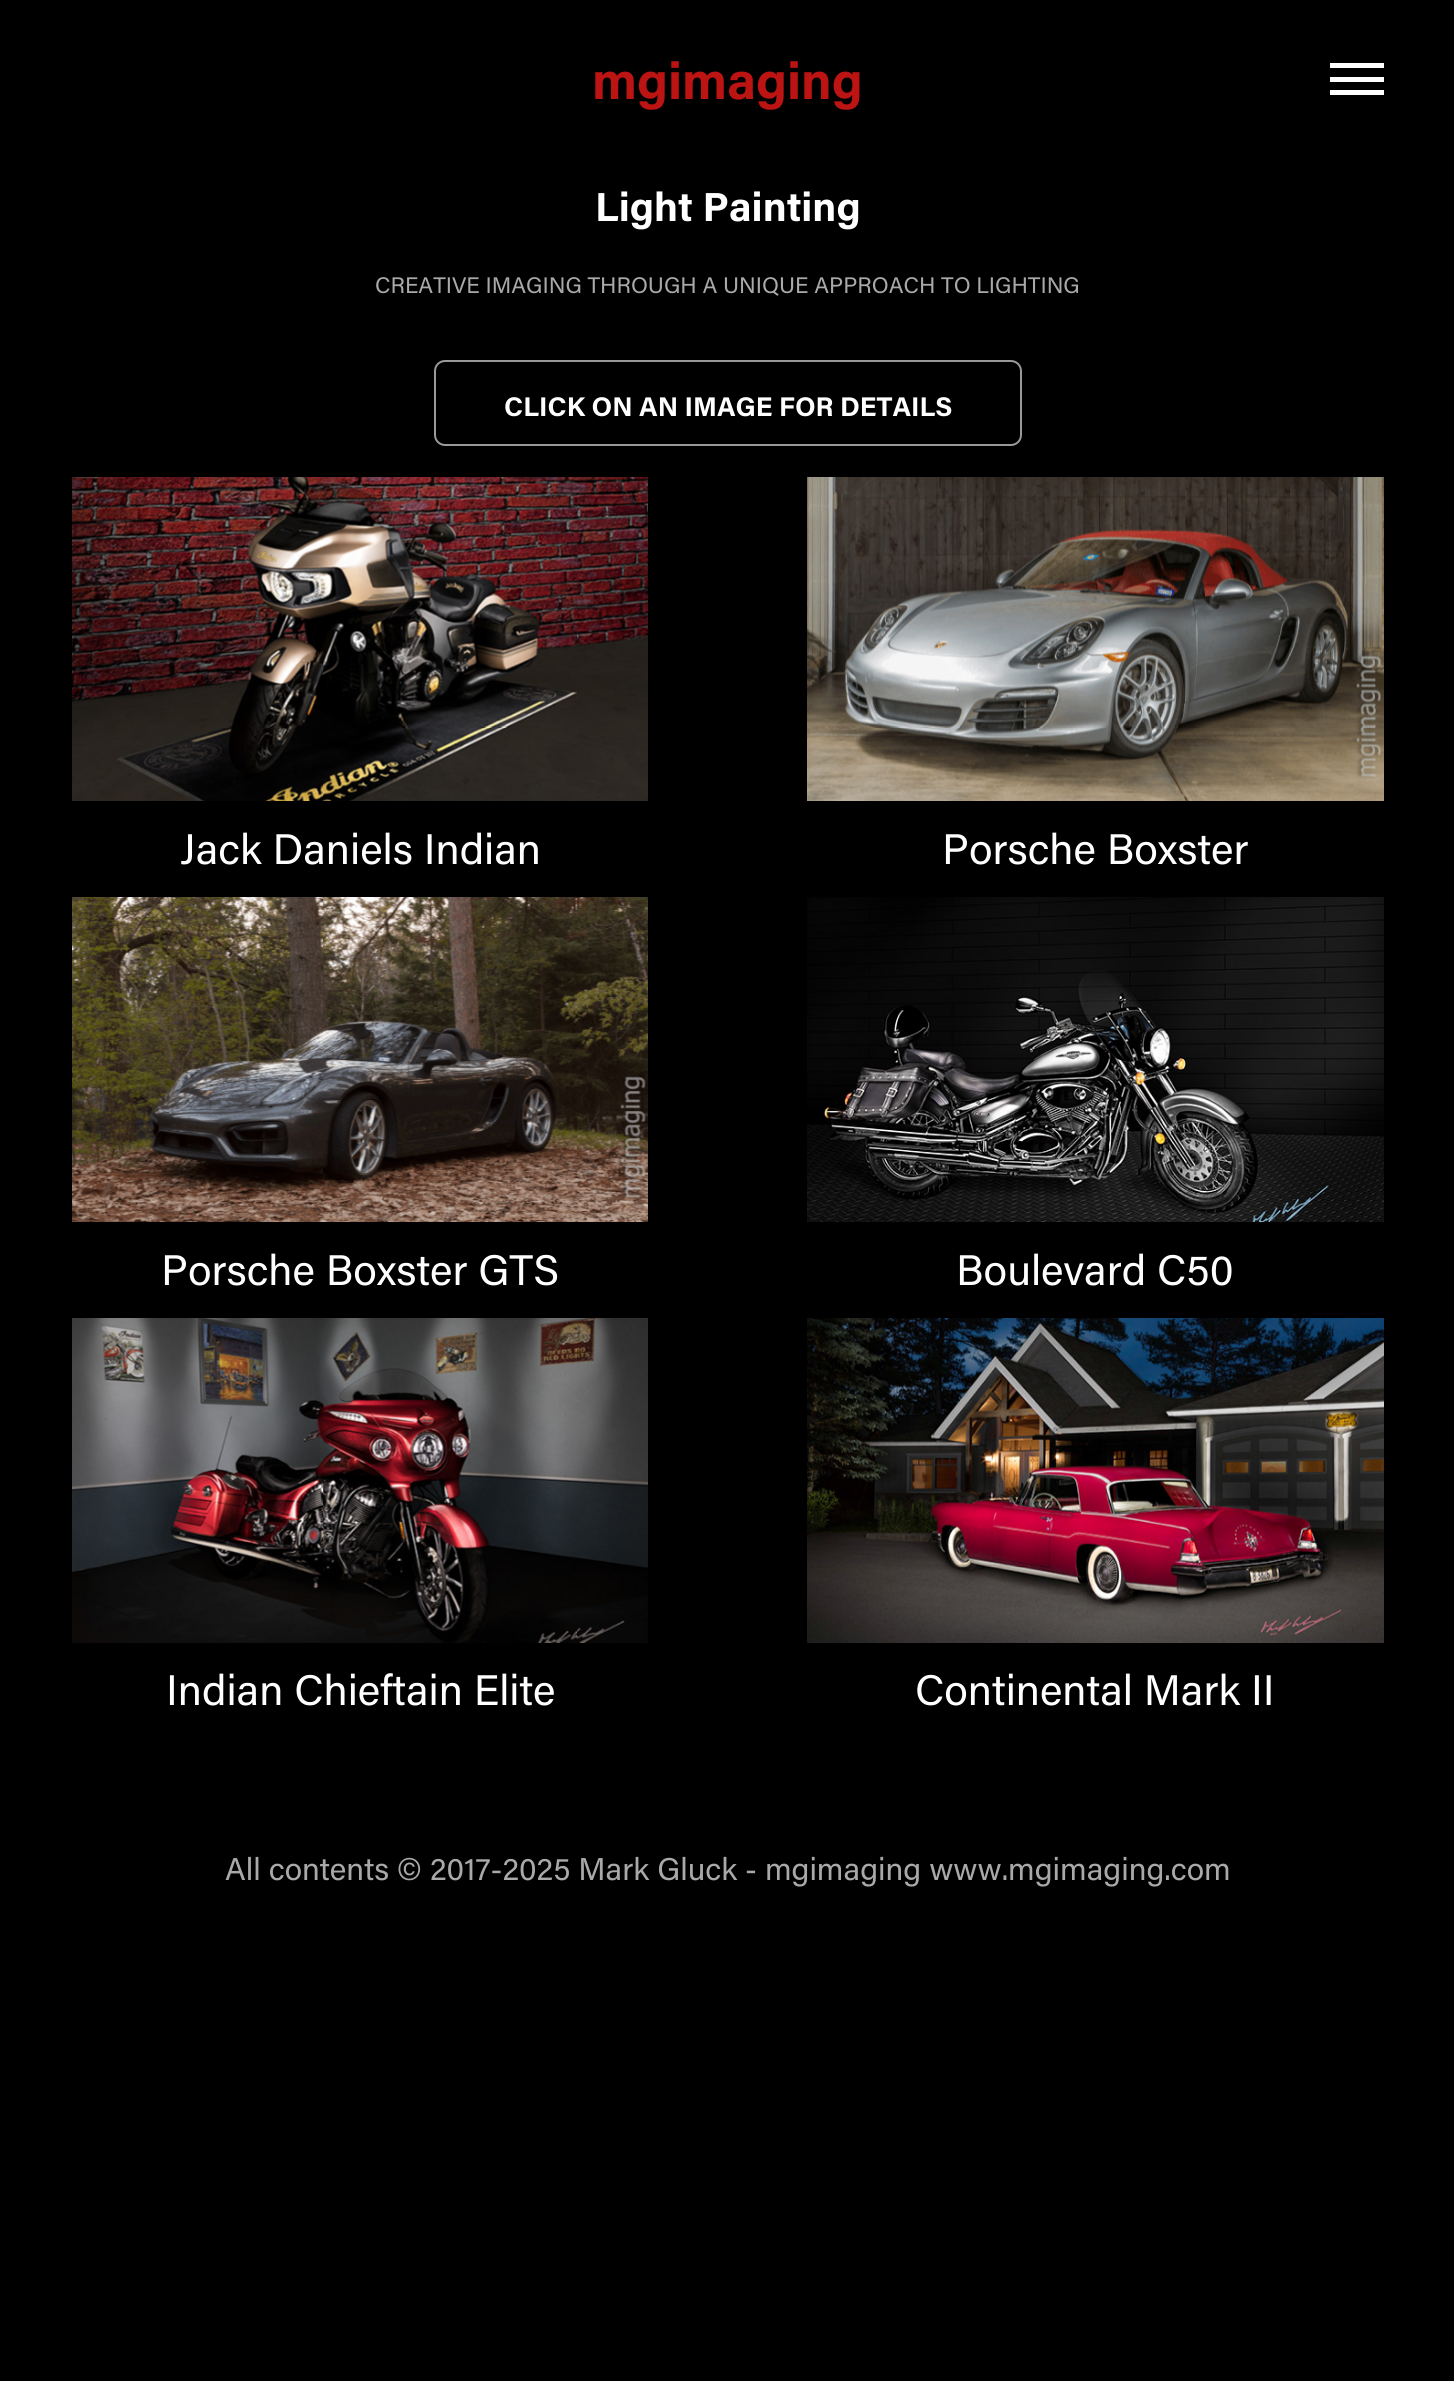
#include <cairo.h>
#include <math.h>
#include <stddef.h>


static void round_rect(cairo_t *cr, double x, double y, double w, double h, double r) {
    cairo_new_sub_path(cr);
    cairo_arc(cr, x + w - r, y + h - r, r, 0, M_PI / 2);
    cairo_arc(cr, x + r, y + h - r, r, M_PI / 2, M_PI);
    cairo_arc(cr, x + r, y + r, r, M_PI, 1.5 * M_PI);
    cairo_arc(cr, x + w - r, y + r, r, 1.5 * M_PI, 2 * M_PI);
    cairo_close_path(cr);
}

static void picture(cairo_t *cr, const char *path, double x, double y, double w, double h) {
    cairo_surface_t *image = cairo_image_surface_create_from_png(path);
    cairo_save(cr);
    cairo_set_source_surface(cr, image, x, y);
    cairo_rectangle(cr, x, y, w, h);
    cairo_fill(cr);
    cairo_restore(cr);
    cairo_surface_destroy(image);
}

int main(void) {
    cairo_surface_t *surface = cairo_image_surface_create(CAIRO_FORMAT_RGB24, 1454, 2381);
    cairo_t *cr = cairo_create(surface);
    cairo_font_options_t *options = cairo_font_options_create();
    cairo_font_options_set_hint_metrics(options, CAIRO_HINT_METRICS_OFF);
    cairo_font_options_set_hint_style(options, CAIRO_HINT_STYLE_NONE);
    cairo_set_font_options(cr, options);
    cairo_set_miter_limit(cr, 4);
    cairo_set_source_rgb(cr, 0, 0, 0);
    cairo_paint(cr);
    cairo_select_font_face(cr, "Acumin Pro", CAIRO_FONT_SLANT_NORMAL, CAIRO_FONT_WEIGHT_BOLD);
    cairo_set_font_size(cr, 51.75);
    cairo_set_source_rgb(cr, 0.737, 0.078, 0.078);
    cairo_move_to(cr, 592, 99);
    cairo_show_text(cr, "mgimaging");
    cairo_set_source_rgb(cr, 1, 1, 1);
    cairo_rectangle(cr, 1330, 63, 54, 5);
    cairo_fill(cr);
    cairo_rectangle(cr, 1330, 77, 54, 5);
    cairo_fill(cr);
    cairo_rectangle(cr, 1330, 90, 54, 5);
    cairo_fill(cr);
    cairo_set_font_size(cr, 40.5);
    cairo_move_to(cr, 595, 221);
    cairo_show_text(cr, "Light Painting");
    cairo_select_font_face(cr, "Acumin Pro", CAIRO_FONT_SLANT_NORMAL, CAIRO_FONT_WEIGHT_NORMAL);
    cairo_set_font_size(cr, 22.5);
    cairo_set_source_rgb(cr, 0.663, 0.663, 0.663);
    cairo_move_to(cr, 375, 293);
    cairo_show_text(cr, "CREATIVE IMAGING THROUGH A UNIQUE APPROACH TO LIGHTING");
    round_rect(cr, 435, 361, 586, 84, 10);
    cairo_set_source_rgb(cr, 0.6, 0.6, 0.6);
    cairo_stroke(cr);
    cairo_select_font_face(cr, "Acumin Pro", CAIRO_FONT_SLANT_NORMAL, CAIRO_FONT_WEIGHT_BOLD);
    cairo_set_font_size(cr, 27);
    cairo_set_source_rgb(cr, 1, 1, 1);
    cairo_move_to(cr, 504, 416);
    cairo_show_text(cr, "CLICK ON AN IMAGE FOR DETAILS");
    picture(cr, "img1.png", 72, 477, 576, 324);
    cairo_select_font_face(cr, "Acumin Pro", CAIRO_FONT_SLANT_NORMAL, CAIRO_FONT_WEIGHT_NORMAL);
    cairo_set_font_size(cr, 42.75);
    cairo_move_to(cr, 180, 864);
    cairo_show_text(cr, "Jack Daniels Indian");
    picture(cr, "img2.png", 807, 477, 577, 324);
    cairo_move_to(cr, 942, 864);
    cairo_show_text(cr, "Porsche Boxster");
    picture(cr, "img3.png", 72, 897, 576, 325);
    cairo_move_to(cr, 161, 1285);
    cairo_show_text(cr, "Porsche Boxster GTS");
    picture(cr, "img4.png", 807, 897, 577, 325);
    cairo_move_to(cr, 956, 1285);
    cairo_show_text(cr, "Boulevard C50");
    picture(cr, "img5.png", 72, 1318, 576, 325);
    cairo_move_to(cr, 166, 1705);
    cairo_show_text(cr, "Indian Chieftain Elite");
    picture(cr, "img6.png", 807, 1318, 577, 325);
    cairo_move_to(cr, 915, 1705);
    cairo_show_text(cr, "Continental Mark II");
    cairo_set_font_size(cr, 31.5);
    cairo_set_source_rgb(cr, 0.663, 0.663, 0.663);
    cairo_move_to(cr, 225, 1880);
    cairo_show_text(cr, "All contents © 2017-2025 Mark Gluck - mgimaging www.mgimaging.com");
    cairo_surface_write_to_png(surface, "page.png");
    cairo_font_options_destroy(options);
    cairo_destroy(cr);
    cairo_surface_destroy(surface);
    return 0;
}
